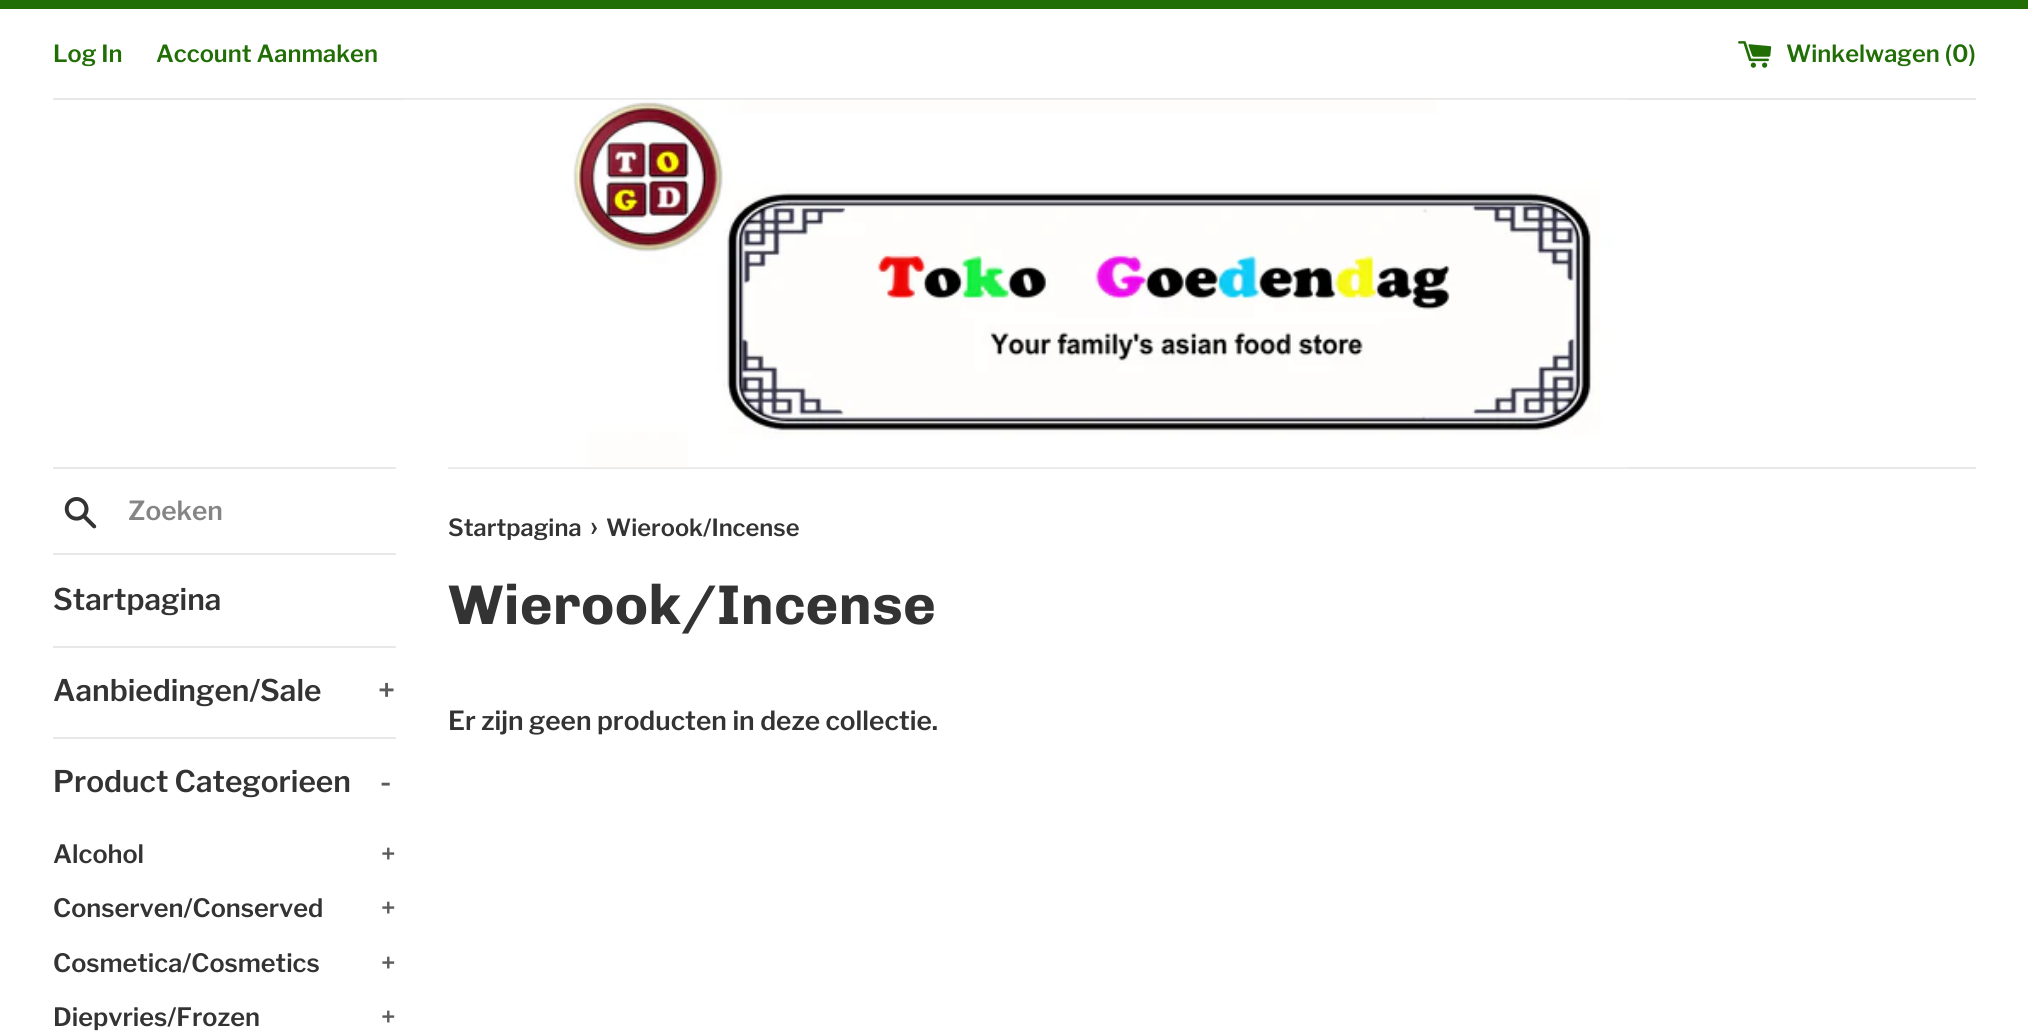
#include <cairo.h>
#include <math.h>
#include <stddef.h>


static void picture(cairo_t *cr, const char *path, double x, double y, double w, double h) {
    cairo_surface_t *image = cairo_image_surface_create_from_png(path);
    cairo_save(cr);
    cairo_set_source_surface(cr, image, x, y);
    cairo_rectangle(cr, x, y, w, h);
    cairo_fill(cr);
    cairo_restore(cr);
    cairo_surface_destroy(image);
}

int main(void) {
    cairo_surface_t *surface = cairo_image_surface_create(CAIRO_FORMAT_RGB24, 2028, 1036);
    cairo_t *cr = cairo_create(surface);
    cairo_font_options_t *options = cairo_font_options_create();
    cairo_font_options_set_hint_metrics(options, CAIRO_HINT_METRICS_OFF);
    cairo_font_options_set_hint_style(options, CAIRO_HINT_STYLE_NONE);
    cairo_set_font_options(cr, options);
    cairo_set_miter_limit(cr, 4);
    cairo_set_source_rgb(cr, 1, 1, 1);
    cairo_paint(cr);
    cairo_set_source_rgb(cr, 0.129, 0.431, 0.027);
    cairo_rectangle(cr, 0, 0, 2028, 9);
    cairo_fill(cr);
    cairo_select_font_face(cr, "Libre Franklin SemiBold", CAIRO_FONT_SLANT_NORMAL, CAIRO_FONT_WEIGHT_NORMAL);
    cairo_set_font_size(cr, 23.6);
    cairo_move_to(cr, 53, 62);
    cairo_show_text(cr, "Log In");
    cairo_move_to(cr, 156, 62);
    cairo_show_text(cr, "Account Aanmaken");
    picture(cr, "img1.png", 1738, 41, 34, 27);
    cairo_move_to(cr, 1786, 62);
    cairo_show_text(cr, "Winkelwagen (0)");
    cairo_set_source_rgb(cr, 0.91, 0.91, 0.91);
    cairo_rectangle(cr, 53, 98, 1923, 2);
    cairo_fill(cr);
    cairo_rectangle(cr, 448, 467, 1528, 2);
    cairo_fill(cr);
    picture(cr, "img2.png", 403, 99, 1224, 369);
    cairo_rectangle(cr, 53, 467, 343, 2);
    cairo_fill(cr);
    cairo_rectangle(cr, 53, 553, 343, 2);
    cairo_fill(cr);
    picture(cr, "img3.png", 64, 497, 33, 32);
    cairo_set_font_size(cr, 26.25);
    cairo_set_source_rgb(cr, 0.522, 0.522, 0.522);
    cairo_move_to(cr, 128, 520);
    cairo_show_text(cr, "Zoeken");
    cairo_set_source_rgb(cr, 0.91, 0.91, 0.91);
    cairo_rectangle(cr, 53, 646, 343, 2);
    cairo_fill(cr);
    cairo_set_font_size(cr, 29.75);
    cairo_set_source_rgb(cr, 0.2, 0.2, 0.2);
    cairo_move_to(cr, 53, 610);
    cairo_show_text(cr, "Startpagina");
    cairo_set_source_rgb(cr, 0.91, 0.91, 0.91);
    cairo_rectangle(cr, 53, 737, 343, 2);
    cairo_fill(cr);
    cairo_set_source_rgb(cr, 0.2, 0.2, 0.2);
    cairo_move_to(cr, 53, 701);
    cairo_show_text(cr, "Aanbiedingen/Sale");
    cairo_set_source_rgb(cr, 0.361, 0.361, 0.361);
    cairo_move_to(cr, 378, 701);
    cairo_show_text(cr, "+");
    cairo_set_source_rgb(cr, 0.2, 0.2, 0.2);
    cairo_move_to(cr, 53, 792);
    cairo_show_text(cr, "Product Categorieen");
    cairo_set_source_rgb(cr, 0.361, 0.361, 0.361);
    cairo_move_to(cr, 380, 792);
    cairo_show_text(cr, "-");
    cairo_set_font_size(cr, 25.25);
    cairo_set_source_rgb(cr, 0.2, 0.2, 0.2);
    cairo_move_to(cr, 53, 863);
    cairo_show_text(cr, "Alcohol");
    cairo_set_source_rgb(cr, 0.361, 0.361, 0.361);
    cairo_move_to(cr, 381, 863);
    cairo_show_text(cr, "+");
    cairo_set_source_rgb(cr, 0.2, 0.2, 0.2);
    cairo_move_to(cr, 53, 917);
    cairo_show_text(cr, "Conserven/Conserved");
    cairo_set_source_rgb(cr, 0.361, 0.361, 0.361);
    cairo_move_to(cr, 381, 917);
    cairo_show_text(cr, "+");
    cairo_set_source_rgb(cr, 0.2, 0.2, 0.2);
    cairo_move_to(cr, 53, 972);
    cairo_show_text(cr, "Cosmetica/Cosmetics");
    cairo_set_source_rgb(cr, 0.361, 0.361, 0.361);
    cairo_move_to(cr, 381, 972);
    cairo_show_text(cr, "+");
    cairo_set_source_rgb(cr, 0.2, 0.2, 0.2);
    cairo_move_to(cr, 53, 1026);
    cairo_show_text(cr, "Diepvries/Frozen");
    cairo_set_source_rgb(cr, 0.361, 0.361, 0.361);
    cairo_move_to(cr, 381, 1026);
    cairo_show_text(cr, "+");
    cairo_set_font_size(cr, 23.6);
    cairo_set_source_rgb(cr, 0.2, 0.2, 0.2);
    cairo_move_to(cr, 448, 536);
    cairo_show_text(cr, "Startpagina");
    cairo_set_font_size(cr, 29);
    cairo_move_to(cr, 590, 536);
    cairo_show_text(cr, "›");
    cairo_set_font_size(cr, 23.6);
    cairo_move_to(cr, 606, 536);
    cairo_show_text(cr, "Wierook/Incense");
    cairo_select_font_face(cr, "Chivo", CAIRO_FONT_SLANT_NORMAL, CAIRO_FONT_WEIGHT_BOLD);
    cairo_set_font_size(cr, 56);
    cairo_move_to(cr, 448, 624);
    cairo_show_text(cr, "Wierook/Incense");
    cairo_select_font_face(cr, "Libre Franklin SemiBold", CAIRO_FONT_SLANT_NORMAL, CAIRO_FONT_WEIGHT_NORMAL);
    cairo_set_font_size(cr, 26.25);
    cairo_move_to(cr, 448, 730);
    cairo_show_text(cr, "Er zijn geen producten in deze collectie.");
    cairo_surface_write_to_png(surface, "page.png");
    cairo_font_options_destroy(options);
    cairo_destroy(cr);
    cairo_surface_destroy(surface);
    return 0;
}
